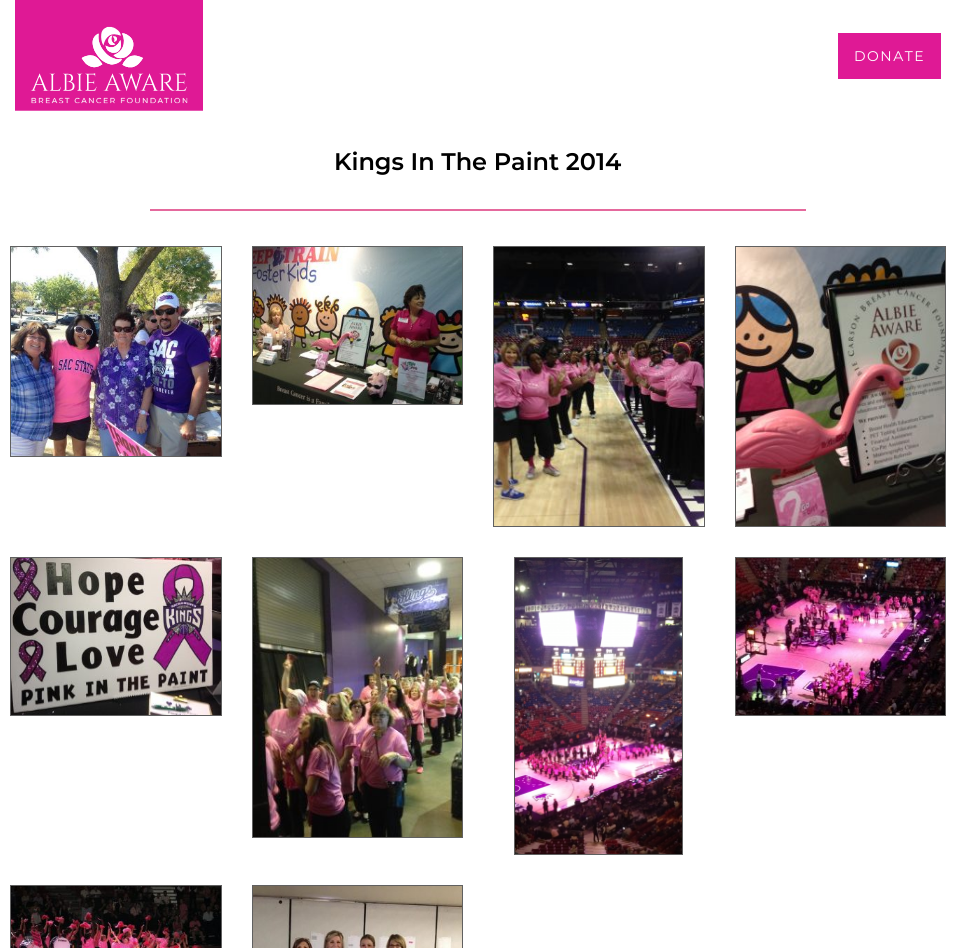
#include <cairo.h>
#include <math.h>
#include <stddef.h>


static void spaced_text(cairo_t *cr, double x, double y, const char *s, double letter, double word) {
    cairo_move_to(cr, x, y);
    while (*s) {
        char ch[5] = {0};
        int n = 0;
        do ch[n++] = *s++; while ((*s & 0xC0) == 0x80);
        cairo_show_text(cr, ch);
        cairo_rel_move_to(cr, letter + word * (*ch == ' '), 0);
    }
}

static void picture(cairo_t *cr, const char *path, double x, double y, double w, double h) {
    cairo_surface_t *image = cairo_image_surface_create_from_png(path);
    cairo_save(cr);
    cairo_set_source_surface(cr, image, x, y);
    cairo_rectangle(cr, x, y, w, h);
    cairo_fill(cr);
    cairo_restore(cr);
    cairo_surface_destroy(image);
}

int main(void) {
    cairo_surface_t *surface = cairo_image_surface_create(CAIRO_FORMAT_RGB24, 956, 948);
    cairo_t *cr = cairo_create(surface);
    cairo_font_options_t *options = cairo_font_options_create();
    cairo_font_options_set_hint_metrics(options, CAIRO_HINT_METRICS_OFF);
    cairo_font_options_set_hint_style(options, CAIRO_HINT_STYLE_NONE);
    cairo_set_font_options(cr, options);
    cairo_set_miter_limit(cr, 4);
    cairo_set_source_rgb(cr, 1, 1, 1);
    cairo_paint(cr);
    picture(cr, "img1.png", 15, 0, 188, 111);
    cairo_set_source_rgb(cr, 0.875, 0.098, 0.584);
    cairo_rectangle(cr, 838, 33, 103, 46);
    cairo_fill(cr);
    cairo_select_font_face(cr, "Montserrat", CAIRO_FONT_SLANT_NORMAL, CAIRO_FONT_WEIGHT_NORMAL);
    cairo_set_font_size(cr, 14);
    cairo_set_source_rgb(cr, 1, 1, 1);
    spaced_text(cr, 854, 61, "DONATE", 1.5, 0);
    cairo_select_font_face(cr, "Montserrat SemiBold", CAIRO_FONT_SLANT_NORMAL, CAIRO_FONT_WEIGHT_NORMAL);
    cairo_set_font_size(cr, 24);
    cairo_set_source_rgb(cr, 0, 0, 0);
    cairo_move_to(cr, 334, 170);
    cairo_show_text(cr, "Kings In The Paint 2014");
    cairo_set_source_rgb(cr, 0.898, 0.412, 0.616);
    cairo_rectangle(cr, 150, 209, 656, 2);
    cairo_fill(cr);
    cairo_rectangle(cr, 10.5, 246.5, 211, 210);
    cairo_set_source_rgb(cr, 0.376, 0.376, 0.376);
    cairo_set_line_width(cr, 1);
    cairo_stroke(cr);
    picture(cr, "img2.png", 11, 247, 210, 209);
    cairo_rectangle(cr, 252.5, 246.5, 210, 158);
    cairo_stroke(cr);
    picture(cr, "img3.png", 253, 247, 209, 157);
    cairo_rectangle(cr, 493.5, 246.5, 211, 280);
    cairo_stroke(cr);
    picture(cr, "img4.png", 494, 247, 210, 279);
    cairo_rectangle(cr, 735.5, 246.5, 210, 280);
    cairo_stroke(cr);
    picture(cr, "img5.png", 736, 247, 209, 279);
    cairo_rectangle(cr, 10.5, 557.5, 211, 158);
    cairo_stroke(cr);
    picture(cr, "img6.png", 11, 558, 210, 157);
    cairo_rectangle(cr, 252.5, 557.5, 210, 280);
    cairo_stroke(cr);
    picture(cr, "img7.png", 253, 558, 209, 279);
    cairo_rectangle(cr, 514.5, 557.5, 168, 297);
    cairo_stroke(cr);
    picture(cr, "img8.png", 515, 558, 167, 296);
    cairo_rectangle(cr, 735.5, 557.5, 210, 158);
    cairo_stroke(cr);
    picture(cr, "img9.png", 736, 558, 209, 157);
    cairo_rectangle(cr, 10.5, 885.5, 211, 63);
    cairo_stroke(cr);
    picture(cr, "img10.png", 11, 886, 210, 62);
    cairo_rectangle(cr, 252.5, 885.5, 210, 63);
    cairo_stroke(cr);
    picture(cr, "img11.png", 253, 886, 209, 62);
    cairo_surface_write_to_png(surface, "page.png");
    cairo_font_options_destroy(options);
    cairo_destroy(cr);
    cairo_surface_destroy(surface);
    return 0;
}
